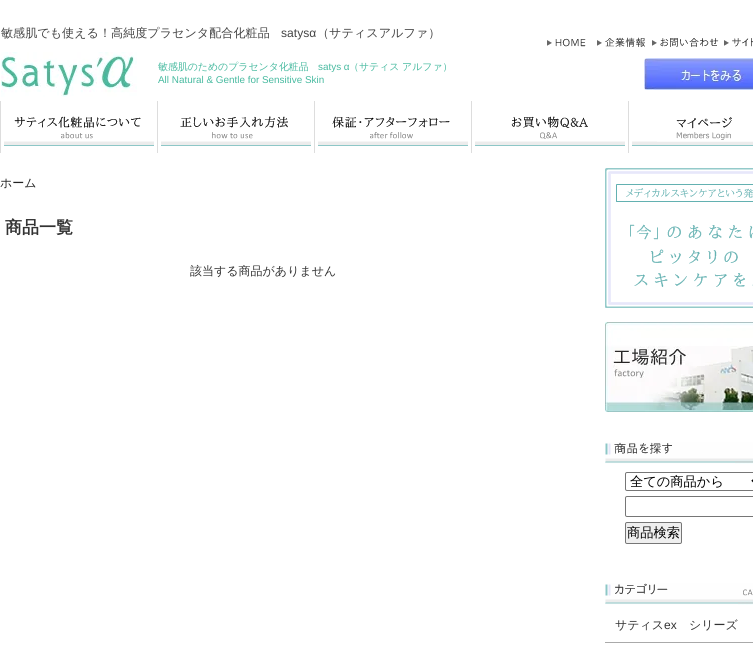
#include <cairo.h>
#include <math.h>
#include <stddef.h>


static void round_rect(cairo_t *cr, double x, double y, double w, double h, double r) {
    cairo_new_sub_path(cr);
    cairo_arc(cr, x + w - r, y + h - r, r, 0, M_PI / 2);
    cairo_arc(cr, x + r, y + h - r, r, M_PI / 2, M_PI);
    cairo_arc(cr, x + r, y + r, r, M_PI, 1.5 * M_PI);
    cairo_arc(cr, x + w - r, y + r, r, 1.5 * M_PI, 2 * M_PI);
    cairo_close_path(cr);
}

static void picture(cairo_t *cr, const char *path, double x, double y, double w, double h) {
    cairo_surface_t *image = cairo_image_surface_create_from_png(path);
    cairo_save(cr);
    cairo_set_source_surface(cr, image, x, y);
    cairo_rectangle(cr, x, y, w, h);
    cairo_fill(cr);
    cairo_restore(cr);
    cairo_surface_destroy(image);
}

int main(void) {
    cairo_surface_t *surface = cairo_image_surface_create(CAIRO_FORMAT_RGB24, 753, 648);
    cairo_t *cr = cairo_create(surface);
    cairo_font_options_t *options = cairo_font_options_create();
    cairo_font_options_set_hint_metrics(options, CAIRO_HINT_METRICS_OFF);
    cairo_font_options_set_hint_style(options, CAIRO_HINT_STYLE_NONE);
    cairo_set_font_options(cr, options);
    cairo_set_miter_limit(cr, 4);
    cairo_set_source_rgb(cr, 1, 1, 1);
    cairo_paint(cr);
    cairo_select_font_face(cr, "WenQuanYi Zen Hei Medium", CAIRO_FONT_SLANT_NORMAL, CAIRO_FONT_WEIGHT_NORMAL);
    cairo_set_font_size(cr, 12.1);
    cairo_set_source_rgb(cr, 0.267, 0.267, 0.267);
    cairo_move_to(cr, 1, 37);
    cairo_show_text(cr, "敏感肌でも使える！高純度プラセンタ配合化粧品");
    cairo_select_font_face(cr, "Liberation Sans", CAIRO_FONT_SLANT_NORMAL, CAIRO_FONT_WEIGHT_NORMAL);
    cairo_move_to(cr, 281, 37);
    cairo_show_text(cr, "satysα");
    cairo_select_font_face(cr, "WenQuanYi Zen Hei Medium", CAIRO_FONT_SLANT_NORMAL, CAIRO_FONT_WEIGHT_NORMAL);
    cairo_move_to(cr, 317, 37);
    cairo_show_text(cr, "（サティスアルファ）");
    picture(cr, "img1.png", 547, 38, 39, 9);
    picture(cr, "img2.png", 597, 37, 48, 10);
    picture(cr, "img3.png", 652, 38, 67, 9);
    picture(cr, "img4.png", 724, 38, 29, 9);
    picture(cr, "img5.png", 1, 52, 136, 45);
    cairo_set_font_size(cr, 9.9);
    cairo_set_source_rgb(cr, 0.282, 0.729, 0.627);
    cairo_move_to(cr, 158, 70);
    cairo_show_text(cr, "敏感肌のためのプラセンタ化粧品");
    cairo_select_font_face(cr, "Liberation Sans", CAIRO_FONT_SLANT_NORMAL, CAIRO_FONT_WEIGHT_NORMAL);
    cairo_move_to(cr, 318, 70);
    cairo_show_text(cr, "satys α");
    cairo_select_font_face(cr, "WenQuanYi Zen Hei Medium", CAIRO_FONT_SLANT_NORMAL, CAIRO_FONT_WEIGHT_NORMAL);
    cairo_move_to(cr, 349, 70);
    cairo_show_text(cr, "（サティス");
    cairo_move_to(cr, 402, 70);
    cairo_show_text(cr, "アルファ）");
    cairo_select_font_face(cr, "Liberation Sans", CAIRO_FONT_SLANT_NORMAL, CAIRO_FONT_WEIGHT_NORMAL);
    cairo_move_to(cr, 158, 83);
    cairo_show_text(cr, "All Natural & Gentle for Sensitive Skin");
    picture(cr, "img6.png", 644, 58, 109, 32);
    cairo_set_source_rgb(cr, 0.867, 0.867, 0.867);
    cairo_rectangle(cr, 0, 101, 1, 52);
    cairo_fill(cr);
    picture(cr, "img7.png", 4, 116, 150, 30);
    cairo_rectangle(cr, 157, 101, 1, 52);
    cairo_fill(cr);
    picture(cr, "img8.png", 161, 116, 150, 30);
    cairo_rectangle(cr, 314, 101, 1, 52);
    cairo_fill(cr);
    picture(cr, "img9.png", 318, 116, 150, 30);
    cairo_rectangle(cr, 471, 101, 1, 52);
    cairo_fill(cr);
    picture(cr, "img10.png", 475, 116, 150, 30);
    cairo_rectangle(cr, 628, 101, 1, 52);
    cairo_fill(cr);
    picture(cr, "img11.png", 632, 117, 121, 29);
    cairo_select_font_face(cr, "WenQuanYi Zen Hei Medium", CAIRO_FONT_SLANT_NORMAL, CAIRO_FONT_WEIGHT_NORMAL);
    cairo_set_font_size(cr, 12);
    cairo_set_source_rgb(cr, 0.133, 0.133, 0.133);
    cairo_move_to(cr, 0, 187);
    cairo_show_text(cr, "ホーム");
    cairo_select_font_face(cr, "WenQuanYi Zen Hei", CAIRO_FONT_SLANT_NORMAL, CAIRO_FONT_WEIGHT_BOLD);
    cairo_set_font_size(cr, 17);
    cairo_set_source_rgb(cr, 0.2, 0.2, 0.2);
    cairo_move_to(cr, 5, 233);
    cairo_show_text(cr, "商品一覧");
    cairo_select_font_face(cr, "WenQuanYi Zen Hei Medium", CAIRO_FONT_SLANT_NORMAL, CAIRO_FONT_WEIGHT_NORMAL);
    cairo_set_font_size(cr, 12);
    cairo_move_to(cr, 190, 275);
    cairo_show_text(cr, "該当する商品がありません");
    picture(cr, "img12.png", 605, 168, 148, 140);
    picture(cr, "img13.png", 605, 322, 148, 90);
    picture(cr, "img14.png", 605, 442, 148, 22);
    round_rect(cr, 625.5, 472.5, 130, 18, 1.5);
    cairo_set_source_rgb(cr, 0.463, 0.463, 0.463);
    cairo_set_line_width(cr, 1);
    cairo_stroke(cr);
    cairo_new_path(cr);
    cairo_move_to(cr, 752, 480);
    cairo_line_to(cr, 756, 484);
    cairo_line_to(cr, 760, 480);
    cairo_set_source_rgb(cr, 0, 0, 0);
    cairo_set_line_width(cr, 2);
    cairo_stroke(cr);
    cairo_set_font_size(cr, 13.25);
    cairo_move_to(cr, 630, 486);
    cairo_show_text(cr, "全ての商品から");
    round_rect(cr, 625.5, 496.5, 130, 20, 1.5);
    cairo_set_source_rgb(cr, 0.463, 0.463, 0.463);
    cairo_set_line_width(cr, 1);
    cairo_stroke(cr);
    cairo_set_source_rgb(cr, 0.937, 0.937, 0.937);
    round_rect(cr, 625.5, 522.5, 56, 21, 1.5);
    cairo_fill_preserve(cr);
    cairo_set_source_rgb(cr, 0.463, 0.463, 0.463);
    cairo_stroke(cr);
    cairo_set_source_rgb(cr, 0, 0, 0);
    cairo_move_to(cr, 627, 537);
    cairo_show_text(cr, "商品検索");
    picture(cr, "img15.png", 605, 583, 148, 22);
    cairo_set_source_rgb(cr, 0.667, 0.667, 0.667);
    cairo_rectangle(cr, 605, 642, 148, 1);
    cairo_fill(cr);
    cairo_set_font_size(cr, 12);
    cairo_set_source_rgb(cr, 0.2, 0.2, 0.2);
    cairo_move_to(cr, 615, 629);
    cairo_show_text(cr, "サティス");
    cairo_select_font_face(cr, "Liberation Sans", CAIRO_FONT_SLANT_NORMAL, CAIRO_FONT_WEIGHT_NORMAL);
    cairo_move_to(cr, 664, 629);
    cairo_show_text(cr, "ex");
    cairo_select_font_face(cr, "WenQuanYi Zen Hei Medium", CAIRO_FONT_SLANT_NORMAL, CAIRO_FONT_WEIGHT_NORMAL);
    cairo_move_to(cr, 689, 629);
    cairo_show_text(cr, "シリーズ");
    cairo_surface_write_to_png(surface, "page.png");
    cairo_font_options_destroy(options);
    cairo_destroy(cr);
    cairo_surface_destroy(surface);
    return 0;
}
